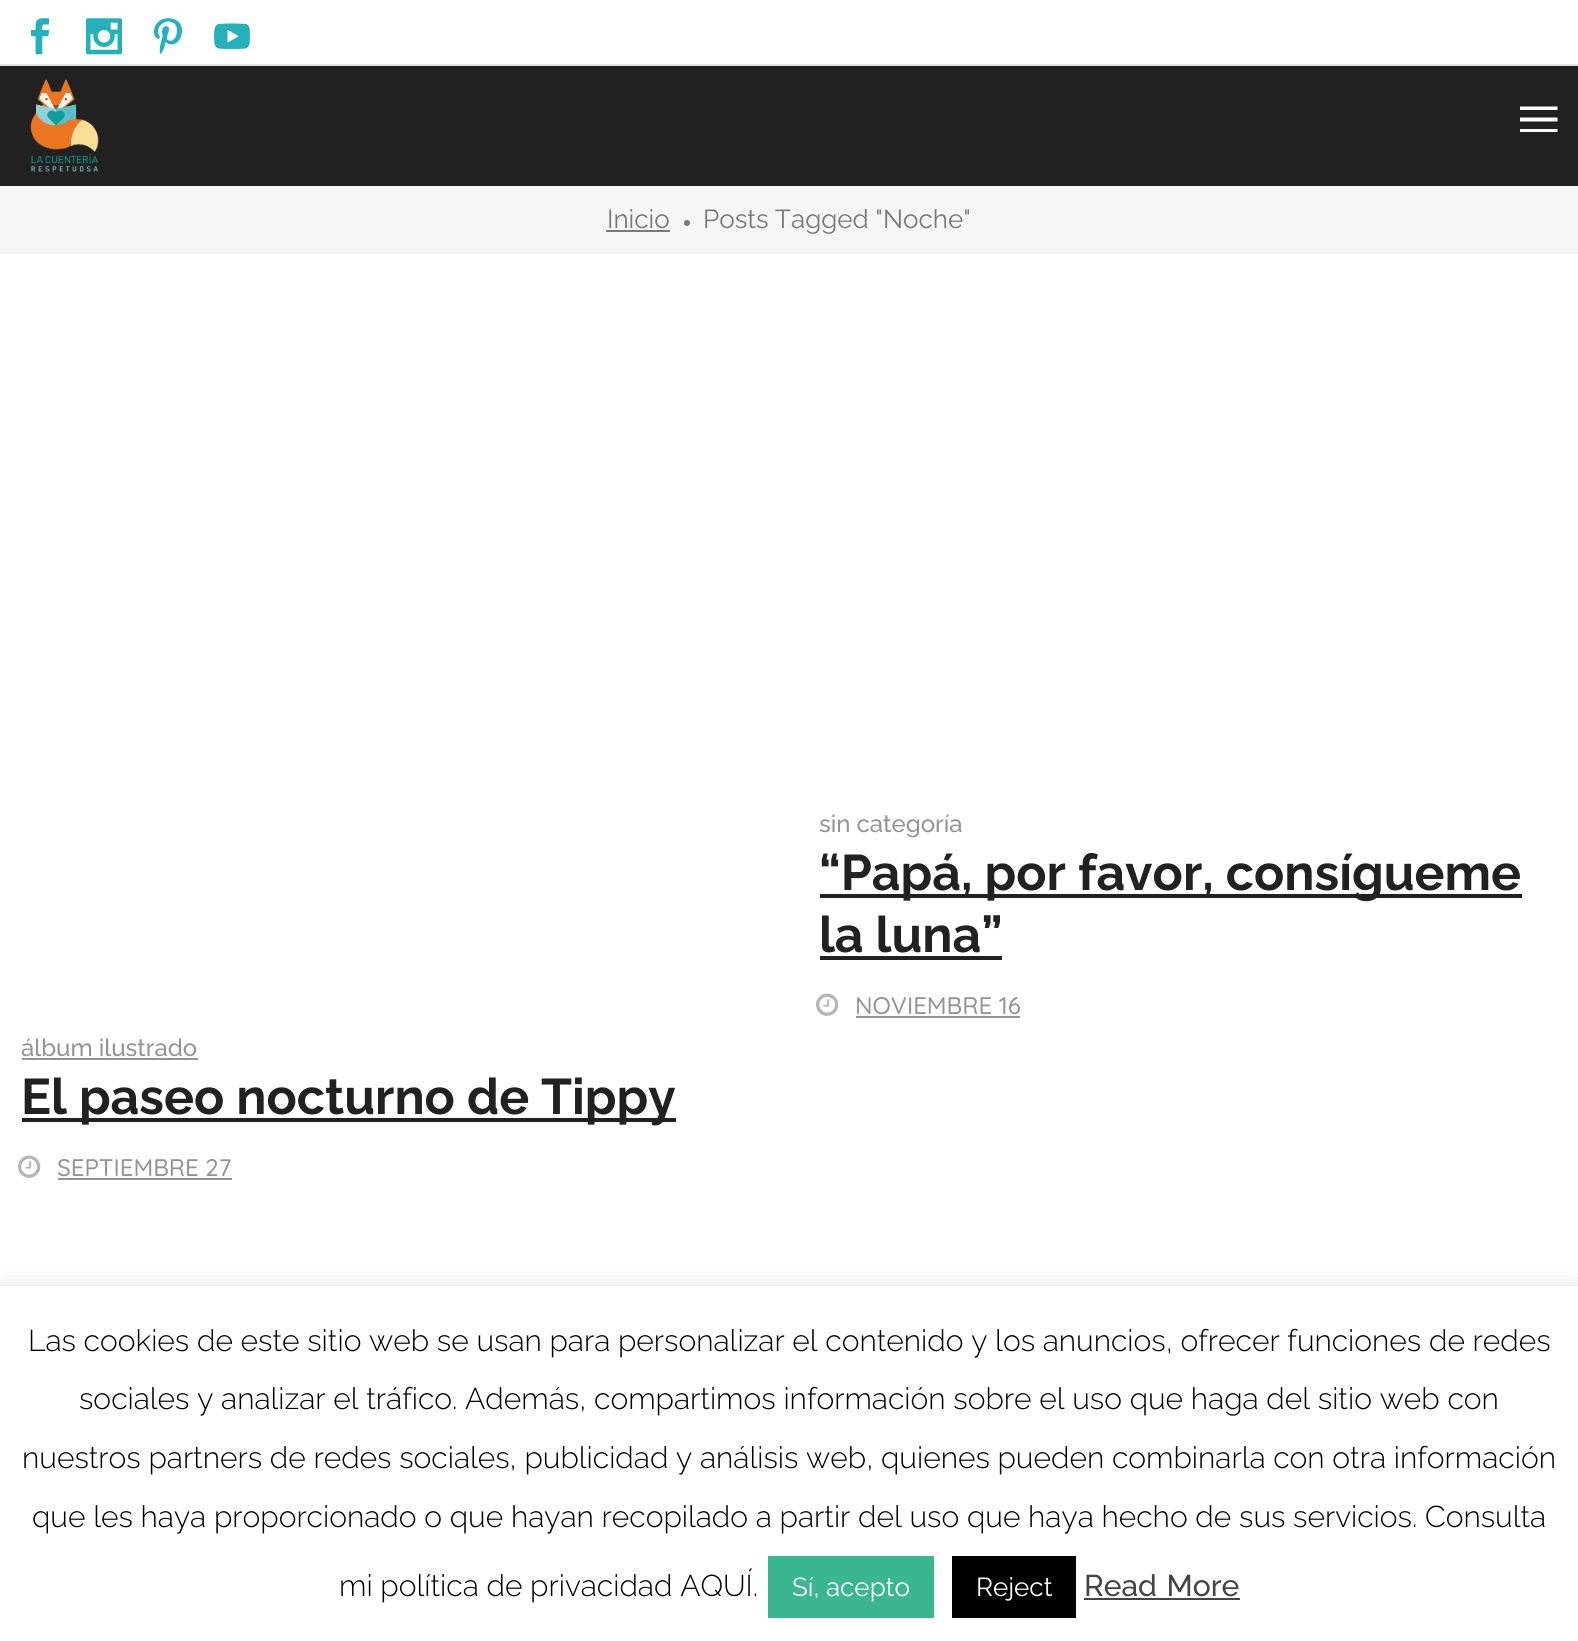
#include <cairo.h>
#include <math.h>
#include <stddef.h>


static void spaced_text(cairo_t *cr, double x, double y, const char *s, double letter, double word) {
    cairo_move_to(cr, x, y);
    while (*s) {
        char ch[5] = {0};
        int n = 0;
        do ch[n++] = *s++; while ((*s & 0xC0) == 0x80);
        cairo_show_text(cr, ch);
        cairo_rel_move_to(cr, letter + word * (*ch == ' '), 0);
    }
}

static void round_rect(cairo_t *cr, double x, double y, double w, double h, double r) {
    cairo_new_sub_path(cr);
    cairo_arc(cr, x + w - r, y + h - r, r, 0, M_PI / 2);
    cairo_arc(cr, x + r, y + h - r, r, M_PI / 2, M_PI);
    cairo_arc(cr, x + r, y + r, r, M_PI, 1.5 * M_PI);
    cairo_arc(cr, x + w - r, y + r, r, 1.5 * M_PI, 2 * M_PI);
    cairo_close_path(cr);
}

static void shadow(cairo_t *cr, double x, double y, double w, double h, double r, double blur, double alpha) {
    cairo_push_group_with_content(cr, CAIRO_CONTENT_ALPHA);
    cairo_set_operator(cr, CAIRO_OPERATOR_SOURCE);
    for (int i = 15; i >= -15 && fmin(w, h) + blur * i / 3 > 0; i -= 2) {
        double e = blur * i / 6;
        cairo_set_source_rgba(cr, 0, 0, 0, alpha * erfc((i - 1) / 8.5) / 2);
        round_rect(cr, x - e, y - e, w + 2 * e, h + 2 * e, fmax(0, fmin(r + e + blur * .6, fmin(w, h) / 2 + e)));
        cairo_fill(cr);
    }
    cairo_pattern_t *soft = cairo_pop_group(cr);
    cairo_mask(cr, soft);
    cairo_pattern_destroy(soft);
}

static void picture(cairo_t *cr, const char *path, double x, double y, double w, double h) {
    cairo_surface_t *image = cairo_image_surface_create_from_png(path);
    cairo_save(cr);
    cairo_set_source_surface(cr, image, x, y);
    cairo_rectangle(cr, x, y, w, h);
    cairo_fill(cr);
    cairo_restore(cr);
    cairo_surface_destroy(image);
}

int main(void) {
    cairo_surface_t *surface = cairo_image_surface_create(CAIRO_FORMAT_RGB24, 1578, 1641);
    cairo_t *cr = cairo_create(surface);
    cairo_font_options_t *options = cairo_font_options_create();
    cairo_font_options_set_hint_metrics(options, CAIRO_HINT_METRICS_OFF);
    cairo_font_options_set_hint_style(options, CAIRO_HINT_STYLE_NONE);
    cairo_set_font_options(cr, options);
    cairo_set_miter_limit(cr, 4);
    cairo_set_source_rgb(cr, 1, 1, 1);
    cairo_paint(cr);
    cairo_set_source_rgb(cr, 0.882, 0.882, 0.882);
    cairo_rectangle(cr, 0, 64, 1578, 2);
    cairo_fill(cr);
    picture(cr, "img1.png", 31, 18, 19, 37);
    picture(cr, "img2.png", 86, 18, 36, 37);
    picture(cr, "img3.png", 154, 18, 28, 37);
    picture(cr, "img4.png", 214, 23, 36, 27);
    cairo_set_source_rgb(cr, 0.129, 0.129, 0.129);
    cairo_rectangle(cr, 0, 66, 1578, 120);
    cairo_fill(cr);
    picture(cr, "img5.png", 30, 79, 69, 93);
    cairo_save(cr);
    cairo_rectangle(cr, 1504, 90, 54, 42);
    cairo_clip(cr);
    cairo_set_source_rgb(cr, 1, 1, 1);
    cairo_new_path(cr);
    cairo_move_to(cr, 1520, 121.5);
    cairo_line_to(cr, 1520, 117.5);
    cairo_line_to(cr, 1557.5, 117.5);
    cairo_line_to(cr, 1557.5, 121.5);
    cairo_close_path(cr);
    cairo_move_to(cr, 1520, 110);
    cairo_line_to(cr, 1520, 106.5);
    cairo_line_to(cr, 1557.5, 106.5);
    cairo_line_to(cr, 1557.5, 110);
    cairo_close_path(cr);
    cairo_move_to(cr, 1520, 132.5);
    cairo_line_to(cr, 1520, 129);
    cairo_line_to(cr, 1557.5, 129);
    cairo_line_to(cr, 1557.5, 132.5);
    cairo_close_path(cr);
    cairo_fill(cr);
    cairo_restore(cr);
    cairo_set_source_rgb(cr, 0.961, 0.961, 0.961);
    cairo_rectangle(cr, 0, 186, 1578, 68);
    cairo_fill(cr);
    cairo_select_font_face(cr, "Raleway", CAIRO_FONT_SLANT_NORMAL, CAIRO_FONT_WEIGHT_NORMAL);
    cairo_set_font_size(cr, 26);
    cairo_set_source_rgb(cr, 0.478, 0.475, 0.475);
    cairo_move_to(cr, 607, 228);
    cairo_show_text(cr, "Inicio");
    cairo_rectangle(cr, 606, 230, 64, 2);
    cairo_fill(cr);
    cairo_arc(cr, 687, 223, 3, 0, 2 * M_PI);
    cairo_fill(cr);
    cairo_move_to(cr, 703, 228);
    cairo_show_text(cr, "Posts Tagged \"Noche\"");
    cairo_select_font_face(cr, "Raleway Medium", CAIRO_FONT_SLANT_NORMAL, CAIRO_FONT_WEIGHT_NORMAL);
    cairo_set_font_size(cr, 24);
    cairo_set_source_rgb(cr, 0.584, 0.58, 0.58);
    cairo_move_to(cr, 819, 832);
    cairo_show_text(cr, "sin categoría");
    cairo_set_source_rgb(cr, 0.129, 0.129, 0.129);
    cairo_rectangle(cr, 820, 894, 702, 4);
    cairo_fill(cr);
    cairo_select_font_face(cr, "Raleway", CAIRO_FONT_SLANT_NORMAL, CAIRO_FONT_WEIGHT_BOLD);
    cairo_set_font_size(cr, 50);
    cairo_move_to(cr, 819, 890);
    cairo_show_text(cr, "“Papá, por favor, consígueme");
    cairo_move_to(cr, 819, 952);
    cairo_show_text(cr, "la luna”");
    cairo_rectangle(cr, 820, 956, 182, 4);
    cairo_fill(cr);
    picture(cr, "img6.png", 816, 993, 23, 23);
    cairo_select_font_face(cr, "Quicksand Medium", CAIRO_FONT_SLANT_NORMAL, CAIRO_FONT_WEIGHT_NORMAL);
    cairo_set_font_size(cr, 24);
    cairo_set_source_rgb(cr, 0.584, 0.58, 0.58);
    cairo_move_to(cr, 855, 1014);
    cairo_show_text(cr, "NOVIEMBRE 16");
    cairo_rectangle(cr, 856, 1016, 164, 2);
    cairo_fill(cr);
    cairo_select_font_face(cr, "Raleway Medium", CAIRO_FONT_SLANT_NORMAL, CAIRO_FONT_WEIGHT_NORMAL);
    cairo_move_to(cr, 21, 1056);
    cairo_show_text(cr, "álbum ilustrado");
    cairo_rectangle(cr, 22, 1058, 176, 2);
    cairo_fill(cr);
    cairo_set_source_rgb(cr, 0.129, 0.129, 0.129);
    cairo_rectangle(cr, 22, 1118, 654, 4);
    cairo_fill(cr);
    cairo_select_font_face(cr, "Raleway", CAIRO_FONT_SLANT_NORMAL, CAIRO_FONT_WEIGHT_BOLD);
    cairo_set_font_size(cr, 50);
    cairo_move_to(cr, 21, 1114);
    cairo_show_text(cr, "El paseo nocturno de Tippy");
    picture(cr, "img6.png", 18, 1155, 23, 23);
    cairo_select_font_face(cr, "Quicksand Medium", CAIRO_FONT_SLANT_NORMAL, CAIRO_FONT_WEIGHT_NORMAL);
    cairo_set_font_size(cr, 24);
    cairo_set_source_rgb(cr, 0.584, 0.58, 0.58);
    cairo_move_to(cr, 57, 1176);
    cairo_show_text(cr, "SEPTIEMBRE 27");
    cairo_rectangle(cr, 58, 1178, 174, 2);
    cairo_fill(cr);
    cairo_set_source_rgb(cr, 0.675, 0.671, 0.671);
    shadow(cr, 0, 1284, 1578, 356, 0, 10, 0.3);
    cairo_set_source_rgb(cr, 1, 1, 1);
    cairo_rectangle(cr, 0, 1286, 1578, 355);
    cairo_fill(cr);
    cairo_select_font_face(cr, "Raleway Light", CAIRO_FONT_SLANT_NORMAL, CAIRO_FONT_WEIGHT_NORMAL);
    cairo_set_font_size(cr, 30);
    cairo_set_source_rgb(cr, 0, 0, 0);
    cairo_move_to(cr, 28, 1351);
    cairo_show_text(cr, "Las cookies de este sitio web se usan para personalizar el contenido y los anuncios, ofrecer funciones de redes");
    cairo_move_to(cr, 79, 1409);
    cairo_show_text(cr, "sociales y analizar el tráfico. Además, compartimos información sobre el uso que haga del sitio web con");
    cairo_move_to(cr, 22, 1468);
    cairo_show_text(cr, "nuestros partners de redes sociales, publicidad y análisis web, quienes pueden combinarla con otra información");
    cairo_move_to(cr, 32, 1527);
    cairo_show_text(cr, "que les haya proporcionado o que hayan recopilado a partir del uso que haya hecho de sus servicios. Consulta");
    cairo_move_to(cr, 339, 1596);
    cairo_show_text(cr, "mi política de privacidad AQUÍ.");
    cairo_set_source_rgb(cr, 0.227, 0.718, 0.565);
    cairo_rectangle(cr, 768, 1556, 166, 62);
    cairo_fill(cr);
    cairo_select_font_face(cr, "Raleway", CAIRO_FONT_SLANT_NORMAL, CAIRO_FONT_WEIGHT_NORMAL);
    cairo_set_font_size(cr, 26);
    cairo_set_source_rgb(cr, 1, 1, 1);
    cairo_move_to(cr, 792, 1596);
    cairo_show_text(cr, "Sí, acepto");
    cairo_set_source_rgb(cr, 0, 0, 0);
    cairo_rectangle(cr, 952, 1556, 124, 62);
    cairo_fill(cr);
    cairo_set_source_rgb(cr, 1, 1, 1);
    cairo_move_to(cr, 976, 1596);
    cairo_show_text(cr, "Reject");
    cairo_select_font_face(cr, "Raleway Medium", CAIRO_FONT_SLANT_NORMAL, CAIRO_FONT_WEIGHT_NORMAL);
    cairo_set_font_size(cr, 30);
    cairo_set_source_rgb(cr, 0.267, 0.267, 0.267);
    spaced_text(cr, 1084, 1596, "Read More", 0, 2);
    cairo_rectangle(cr, 1084, 1598, 156, 2);
    cairo_fill(cr);
    cairo_surface_write_to_png(surface, "page.png");
    cairo_font_options_destroy(options);
    cairo_destroy(cr);
    cairo_surface_destroy(surface);
    return 0;
}
